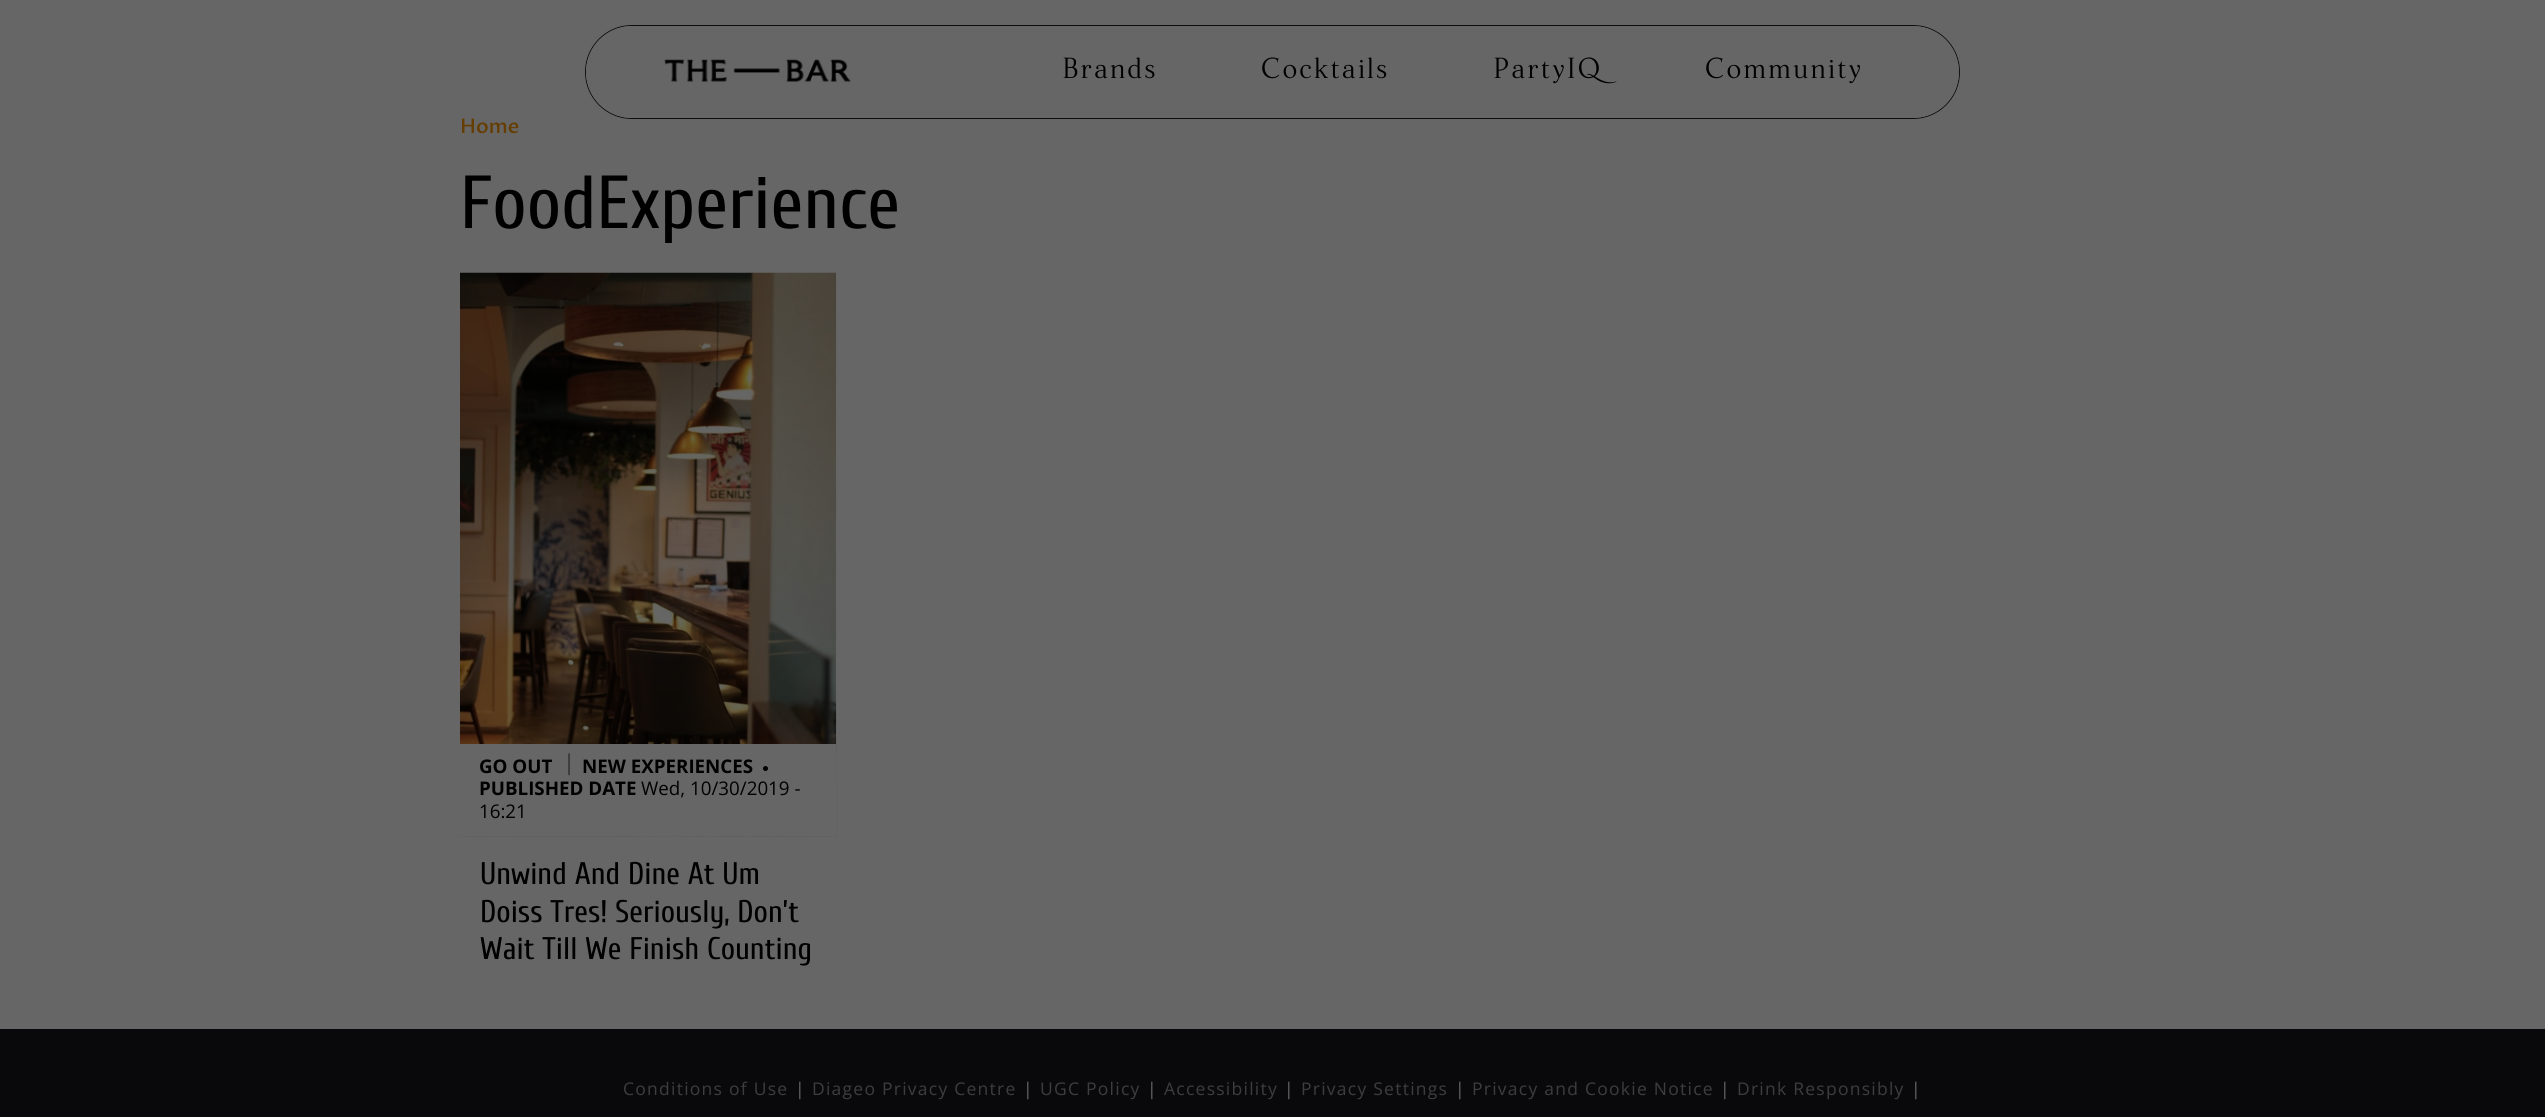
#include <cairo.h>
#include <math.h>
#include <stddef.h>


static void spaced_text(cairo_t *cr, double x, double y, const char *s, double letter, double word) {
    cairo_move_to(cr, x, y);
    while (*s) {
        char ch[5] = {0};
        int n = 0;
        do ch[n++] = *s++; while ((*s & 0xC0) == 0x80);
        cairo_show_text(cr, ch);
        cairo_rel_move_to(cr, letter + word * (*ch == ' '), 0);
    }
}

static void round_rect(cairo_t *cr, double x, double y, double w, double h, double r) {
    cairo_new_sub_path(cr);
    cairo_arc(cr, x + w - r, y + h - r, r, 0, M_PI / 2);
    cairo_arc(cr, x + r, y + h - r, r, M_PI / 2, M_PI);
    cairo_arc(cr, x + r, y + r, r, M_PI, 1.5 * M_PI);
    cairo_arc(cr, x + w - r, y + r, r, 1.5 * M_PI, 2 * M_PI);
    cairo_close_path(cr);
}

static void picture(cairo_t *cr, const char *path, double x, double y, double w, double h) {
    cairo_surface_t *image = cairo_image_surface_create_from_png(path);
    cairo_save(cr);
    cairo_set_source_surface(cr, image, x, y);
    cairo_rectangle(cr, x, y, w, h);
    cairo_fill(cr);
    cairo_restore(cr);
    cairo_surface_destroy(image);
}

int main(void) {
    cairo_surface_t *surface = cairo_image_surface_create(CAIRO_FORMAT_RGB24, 2545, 1117);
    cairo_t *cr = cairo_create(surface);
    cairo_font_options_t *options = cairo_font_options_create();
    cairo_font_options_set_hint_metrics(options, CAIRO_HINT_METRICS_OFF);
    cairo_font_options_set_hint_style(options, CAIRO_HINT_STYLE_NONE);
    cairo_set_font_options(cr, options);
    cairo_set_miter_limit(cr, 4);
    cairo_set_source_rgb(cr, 0.4, 0.4, 0.4);
    cairo_paint(cr);
    round_rect(cr, 585.5, 25.5, 1374, 93, 46.5);
    cairo_set_source_rgb(cr, 0.051, 0.051, 0.051);
    cairo_set_line_width(cr, 1);
    cairo_stroke(cr);
    cairo_set_source_rgb(cr, 0.4, 0.4, 0.4);
    round_rect(cr, 586, 26, 1373, 92, 46);
    cairo_fill(cr);
    picture(cr, "img1.png", 664, 59, 187, 23);
    cairo_select_font_face(cr, "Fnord", CAIRO_FONT_SLANT_NORMAL, CAIRO_FONT_WEIGHT_NORMAL);
    cairo_set_font_size(cr, 31.25);
    cairo_set_source_rgb(cr, 0, 0, 0);
    spaced_text(cr, 1062, 78, "Brands", 2, 0);
    spaced_text(cr, 1261, 78, "Cocktails", 2, 0);
    spaced_text(cr, 1493, 78, "PartyIQ", 2, 0);
    spaced_text(cr, 1705, 78, "Community", 2, 0);
    cairo_select_font_face(cr, "Proza Libre Medium", CAIRO_FONT_SLANT_ITALIC, CAIRO_FONT_WEIGHT_NORMAL);
    cairo_set_font_size(cr, 20);
    cairo_set_source_rgb(cr, 0.4, 0.239, 0);
    cairo_move_to(cr, 460, 133);
    cairo_show_text(cr, "Home");
    cairo_select_font_face(cr, "Cuprum", CAIRO_FONT_SLANT_NORMAL, CAIRO_FONT_WEIGHT_NORMAL);
    cairo_set_font_size(cr, 75);
    cairo_set_source_rgb(cr, 0, 0, 0);
    cairo_move_to(cr, 460, 228);
    cairo_show_text(cr, "FoodExperience");
    picture(cr, "img2.png", 460, 272, 377, 565);
    cairo_set_source_rgb(cr, 0.4, 0.4, 0.4);
    cairo_rectangle(cr, 460, 744, 376, 92);
    cairo_fill(cr);
    cairo_select_font_face(cr, "Open Sans", CAIRO_FONT_SLANT_NORMAL, CAIRO_FONT_WEIGHT_BOLD);
    cairo_set_font_size(cr, 18.75);
    cairo_set_source_rgb(cr, 0, 0, 0);
    cairo_move_to(cr, 479, 773);
    cairo_show_text(cr, "GO OUT");
    cairo_select_font_face(cr, "Open Sans SemiBold", CAIRO_FONT_SLANT_NORMAL, CAIRO_FONT_WEIGHT_NORMAL);
    cairo_set_font_size(cr, 22);
    cairo_set_source_rgb(cr, 0.239, 0.239, 0.239);
    cairo_move_to(cr, 563, 770);
    cairo_show_text(cr, "|");
    cairo_select_font_face(cr, "Open Sans", CAIRO_FONT_SLANT_NORMAL, CAIRO_FONT_WEIGHT_BOLD);
    cairo_set_font_size(cr, 18.75);
    cairo_set_source_rgb(cr, 0, 0, 0);
    cairo_move_to(cr, 582, 773);
    cairo_show_text(cr, "NEW EXPERIENCES");
    cairo_new_path(cr);
    cairo_arc(cr, 765.5, 768.5, 2.5, 0, 2 * M_PI);
    cairo_fill(cr);
    cairo_move_to(cr, 479, 795);
    cairo_show_text(cr, "PUBLISHED DATE");
    cairo_select_font_face(cr, "Open Sans", CAIRO_FONT_SLANT_NORMAL, CAIRO_FONT_WEIGHT_NORMAL);
    cairo_move_to(cr, 641, 795);
    cairo_show_text(cr, "Wed, 10/30/2019 -");
    cairo_move_to(cr, 479, 818);
    cairo_show_text(cr, "16:21");
    cairo_select_font_face(cr, "Cuprum", CAIRO_FONT_SLANT_NORMAL, CAIRO_FONT_WEIGHT_NORMAL);
    cairo_set_font_size(cr, 31.25);
    cairo_move_to(cr, 480, 884);
    cairo_show_text(cr, "Unwind And Dine At Um");
    cairo_move_to(cr, 480, 922);
    cairo_show_text(cr, "Doiss Tres! Seriously, Don’t");
    cairo_move_to(cr, 480, 959);
    cairo_show_text(cr, "Wait Till We Finish Counting");
    cairo_set_source_rgb(cr, 0.039, 0.039, 0.047);
    cairo_rectangle(cr, 0, 1029, 2545, 88);
    cairo_fill(cr);
    cairo_select_font_face(cr, "Open Sans", CAIRO_FONT_SLANT_NORMAL, CAIRO_FONT_WEIGHT_NORMAL);
    cairo_set_font_size(cr, 17.5);
    cairo_set_source_rgb(cr, 0.239, 0.239, 0.239);
    spaced_text(cr, 623, 1095, "Conditions of Use", 1.25, 0);
    cairo_set_source_rgb(cr, 0.4, 0.4, 0.4);
    spaced_text(cr, 795, 1095, "|", 1.25, 0);
    cairo_set_source_rgb(cr, 0.239, 0.239, 0.239);
    spaced_text(cr, 812, 1095, "Diageo Privacy Centre", 1.25, 0);
    cairo_set_source_rgb(cr, 0.4, 0.4, 0.4);
    spaced_text(cr, 1023, 1095, "|", 1.25, 0);
    cairo_set_source_rgb(cr, 0.239, 0.239, 0.239);
    spaced_text(cr, 1040, 1095, "UGC Policy", 1.25, 0);
    cairo_set_source_rgb(cr, 0.4, 0.4, 0.4);
    spaced_text(cr, 1147, 1095, "|", 1.25, 0);
    cairo_set_source_rgb(cr, 0.239, 0.239, 0.239);
    spaced_text(cr, 1164, 1095, "Accessibility", 1.25, 0);
    cairo_set_source_rgb(cr, 0.4, 0.4, 0.4);
    spaced_text(cr, 1284, 1095, "|", 1.25, 0);
    cairo_set_source_rgb(cr, 0.239, 0.239, 0.239);
    spaced_text(cr, 1301, 1095, "Privacy Settings", 1.25, 0);
    cairo_set_source_rgb(cr, 0.4, 0.4, 0.4);
    spaced_text(cr, 1455, 1095, "|", 1.25, 0);
    cairo_set_source_rgb(cr, 0.239, 0.239, 0.239);
    spaced_text(cr, 1472, 1095, "Privacy and Cookie Notice", 1.25, 0);
    cairo_set_source_rgb(cr, 0.4, 0.4, 0.4);
    spaced_text(cr, 1720, 1095, "|", 1.25, 0);
    cairo_set_source_rgb(cr, 0.239, 0.239, 0.239);
    spaced_text(cr, 1737, 1095, "Drink Responsibly", 1.25, 0);
    cairo_set_source_rgb(cr, 0.4, 0.4, 0.4);
    spaced_text(cr, 1911, 1095, "|", 1.25, 0);
    cairo_surface_write_to_png(surface, "page.png");
    cairo_font_options_destroy(options);
    cairo_destroy(cr);
    cairo_surface_destroy(surface);
    return 0;
}
